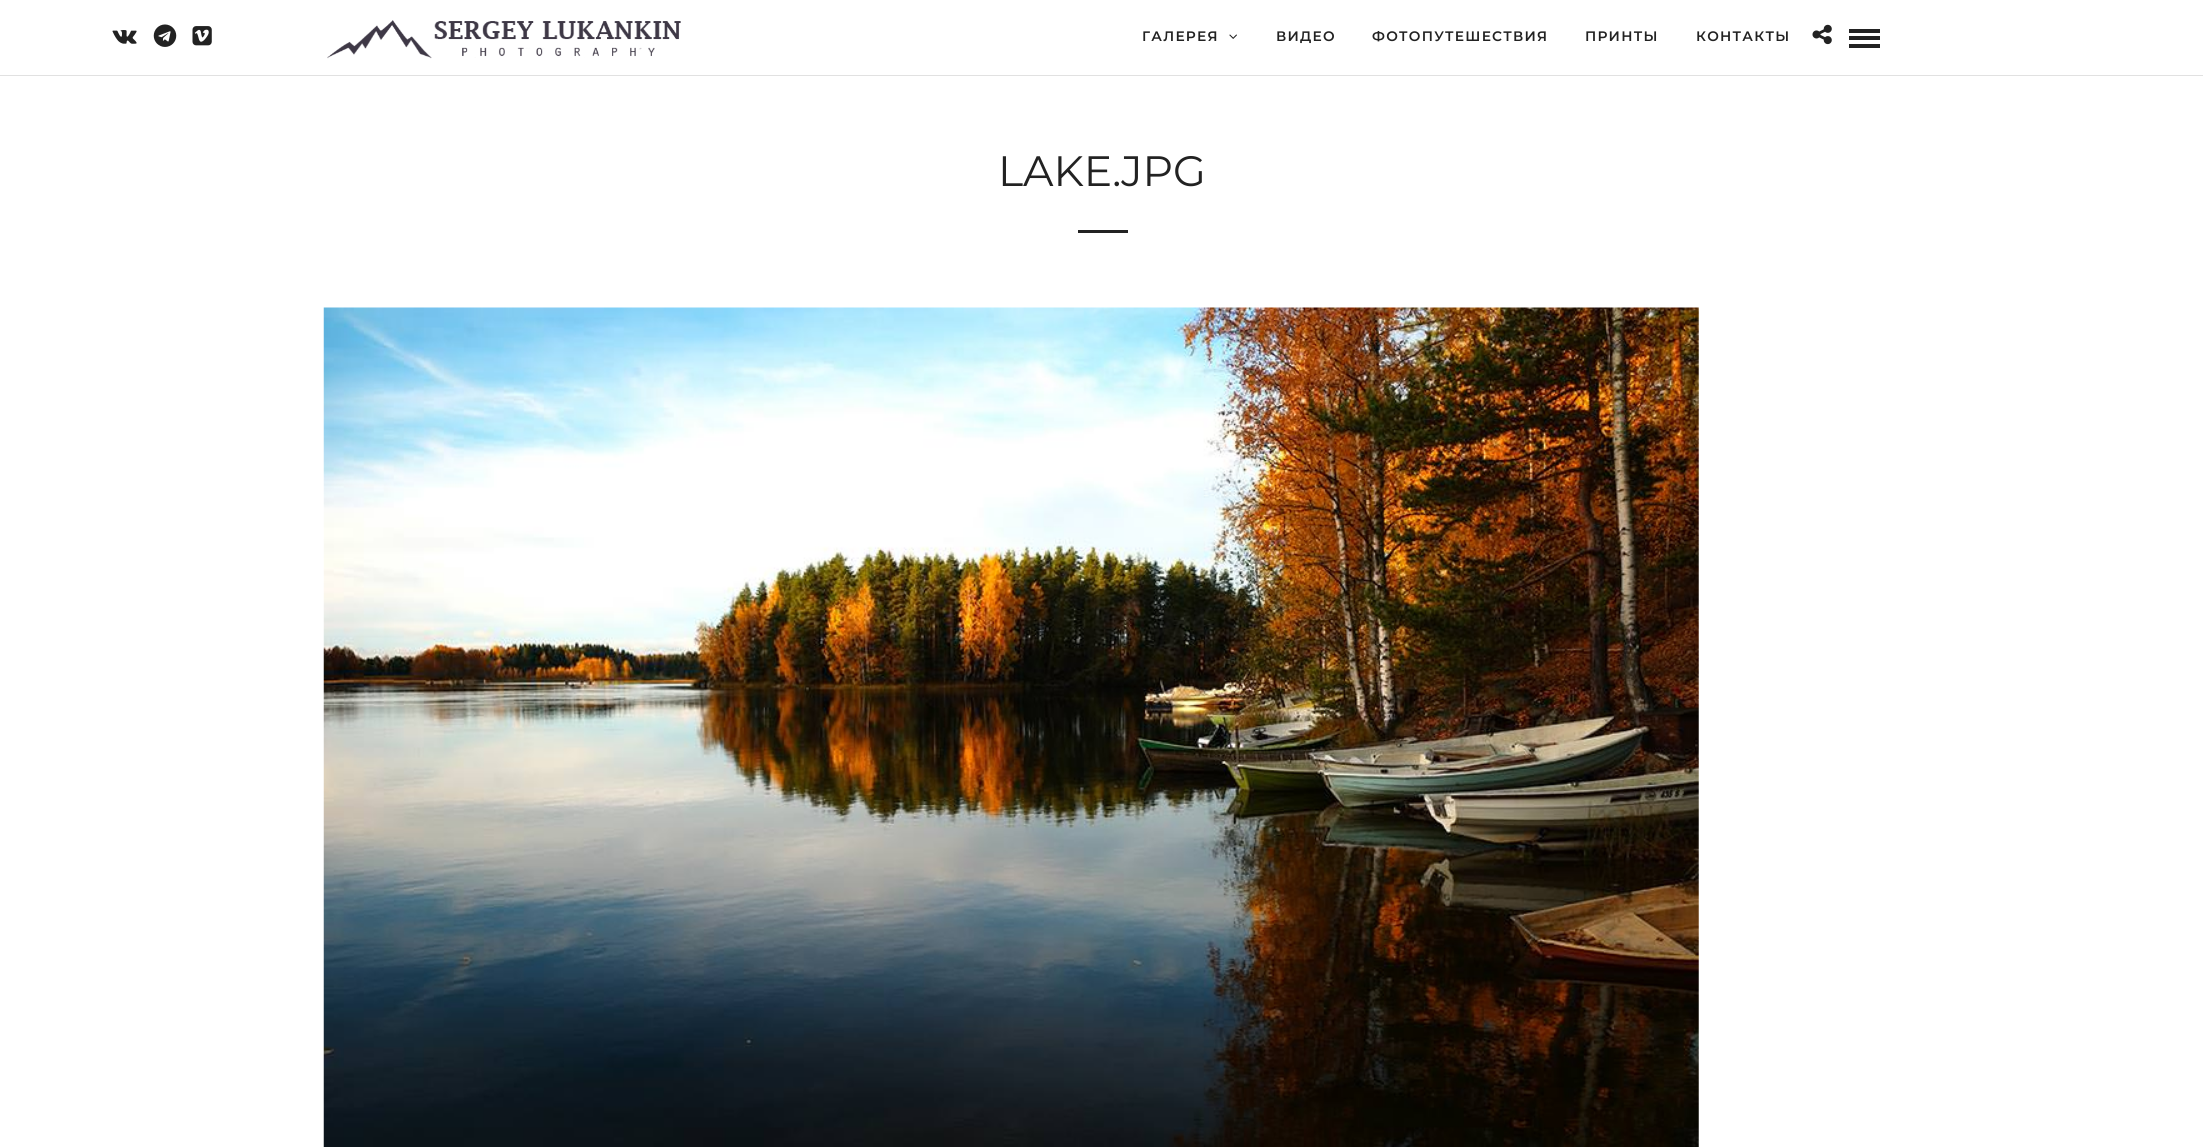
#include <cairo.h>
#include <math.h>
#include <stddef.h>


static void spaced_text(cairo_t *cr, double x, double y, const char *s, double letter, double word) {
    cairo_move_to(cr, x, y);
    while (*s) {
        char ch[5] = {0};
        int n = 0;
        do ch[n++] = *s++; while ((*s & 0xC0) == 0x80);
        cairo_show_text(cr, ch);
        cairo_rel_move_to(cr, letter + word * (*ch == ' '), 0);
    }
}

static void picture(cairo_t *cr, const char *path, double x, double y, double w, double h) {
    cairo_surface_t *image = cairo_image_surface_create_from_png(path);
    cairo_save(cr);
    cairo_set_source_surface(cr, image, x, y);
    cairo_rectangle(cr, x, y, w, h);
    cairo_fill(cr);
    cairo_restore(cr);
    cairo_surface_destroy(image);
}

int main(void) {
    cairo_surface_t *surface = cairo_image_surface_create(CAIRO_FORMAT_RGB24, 2203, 1147);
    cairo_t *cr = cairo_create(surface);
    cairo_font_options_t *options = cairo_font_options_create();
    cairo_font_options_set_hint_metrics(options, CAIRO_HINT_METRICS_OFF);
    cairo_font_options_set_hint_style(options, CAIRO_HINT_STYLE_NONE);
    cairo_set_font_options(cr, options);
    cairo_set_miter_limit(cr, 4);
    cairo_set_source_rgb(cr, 1, 1, 1);
    cairo_paint(cr);
    cairo_set_source_rgb(cr, 0.882, 0.882, 0.882);
    cairo_rectangle(cr, 0, 75, 2203, 1);
    cairo_fill(cr);
    picture(cr, "img1.png", 112, 30, 25, 14);
    picture(cr, "img2.png", 153, 24, 24, 23);
    picture(cr, "img3.png", 192, 26, 20, 20);
    picture(cr, "img4.png", 327, 20, 354, 39);
    cairo_select_font_face(cr, "Montserrat SemiBold", CAIRO_FONT_SLANT_NORMAL, CAIRO_FONT_WEIGHT_NORMAL);
    cairo_set_font_size(cr, 13.75);
    cairo_set_source_rgb(cr, 0.133, 0.133, 0.133);
    spaced_text(cr, 1142, 41, "ГАЛЕРЕЯ", 1.25, 0);
    picture(cr, "img5.png", 1229, 34, 8, 5);
    spaced_text(cr, 1276, 41, "ВИДЕО", 1.25, 0);
    spaced_text(cr, 1372, 41, "ФОТОПУТЕШЕСТВИЯ", 1.25, 0);
    spaced_text(cr, 1585, 41, "ПРИНТЫ", 1.25, 0);
    spaced_text(cr, 1696, 41, "КОНТАКТЫ", 1.25, 0);
    picture(cr, "img6.png", 1812, 24, 20, 21);
    cairo_rectangle(cr, 1849, 29, 31, 4);
    cairo_fill(cr);
    cairo_rectangle(cr, 1849, 36, 31, 4);
    cairo_fill(cr);
    cairo_rectangle(cr, 1849, 44, 31, 4);
    cairo_fill(cr);
    cairo_select_font_face(cr, "Montserrat Thin", CAIRO_FONT_SLANT_NORMAL, CAIRO_FONT_WEIGHT_NORMAL);
    cairo_set_font_size(cr, 42.5);
    cairo_move_to(cr, 998, 186);
    cairo_show_text(cr, "LAKE.JPG");
    cairo_rectangle(cr, 1078, 230, 50, 3);
    cairo_fill(cr);
    picture(cr, "img7.png", 323, 307, 1376, 840);
    cairo_surface_write_to_png(surface, "page.png");
    cairo_font_options_destroy(options);
    cairo_destroy(cr);
    cairo_surface_destroy(surface);
    return 0;
}
